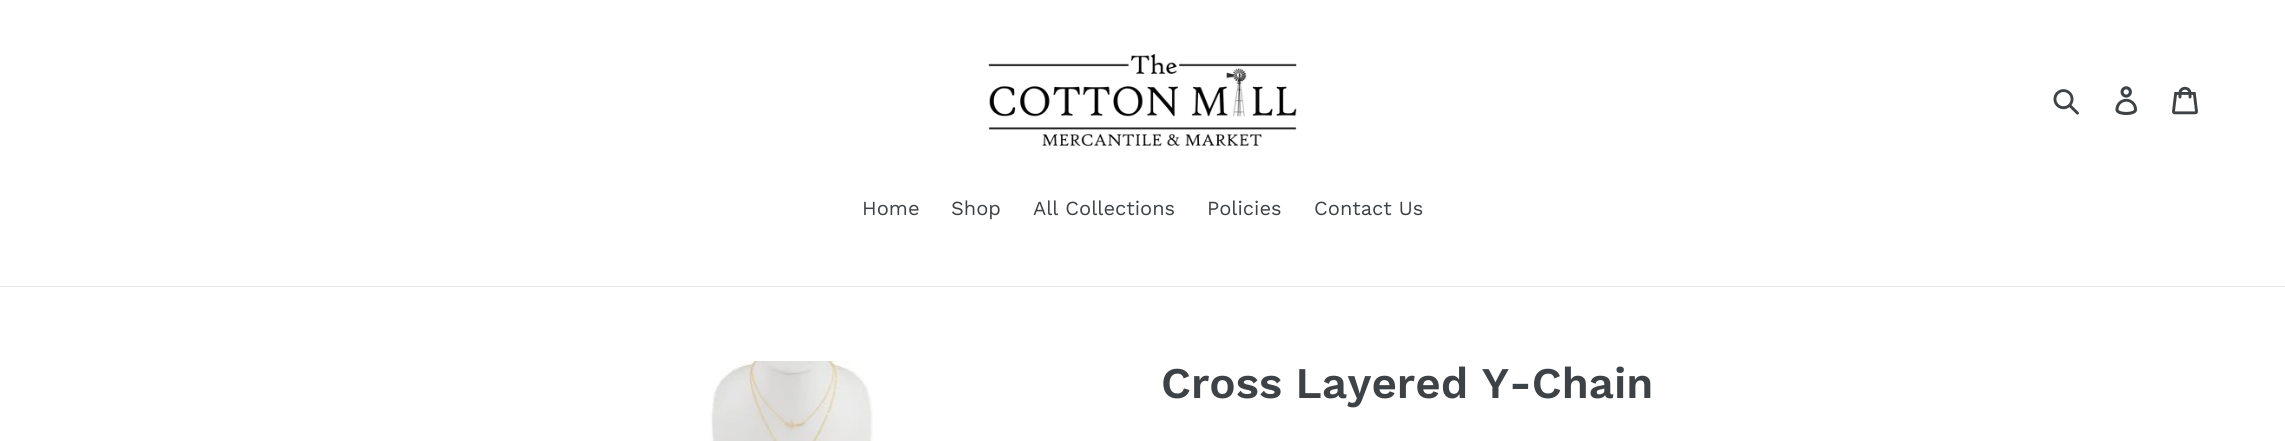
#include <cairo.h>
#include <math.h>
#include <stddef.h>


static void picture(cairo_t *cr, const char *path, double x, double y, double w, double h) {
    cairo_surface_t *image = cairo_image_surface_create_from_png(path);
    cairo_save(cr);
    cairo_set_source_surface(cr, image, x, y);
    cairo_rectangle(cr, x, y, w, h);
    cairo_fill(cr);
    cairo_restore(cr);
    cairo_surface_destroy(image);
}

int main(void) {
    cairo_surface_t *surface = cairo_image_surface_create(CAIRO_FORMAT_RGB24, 2285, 441);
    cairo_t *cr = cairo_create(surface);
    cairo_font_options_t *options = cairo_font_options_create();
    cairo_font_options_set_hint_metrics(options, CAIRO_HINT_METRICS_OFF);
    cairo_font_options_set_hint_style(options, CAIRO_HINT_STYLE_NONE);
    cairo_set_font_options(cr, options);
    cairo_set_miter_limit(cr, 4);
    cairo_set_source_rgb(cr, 1, 1, 1);
    cairo_paint(cr);
    picture(cr, "img1.png", 988, 54, 309, 92);
    picture(cr, "img2.png", 2053, 89, 26, 26);
    picture(cr, "img3.png", 2115, 86, 23, 29);
    picture(cr, "img4.png", 2172, 86, 26, 29);
    cairo_set_source_rgb(cr, 0.91, 0.914, 0.922);
    cairo_rectangle(cr, 0, 286, 2285, 1);
    cairo_fill(cr);
    cairo_select_font_face(cr, "Work Sans", CAIRO_FONT_SLANT_NORMAL, CAIRO_FONT_WEIGHT_NORMAL);
    cairo_set_font_size(cr, 20);
    cairo_set_source_rgb(cr, 0.239, 0.259, 0.275);
    cairo_move_to(cr, 862, 215);
    cairo_show_text(cr, "Home");
    cairo_move_to(cr, 951, 215);
    cairo_show_text(cr, "Shop");
    cairo_move_to(cr, 1033, 215);
    cairo_show_text(cr, "All Collections");
    cairo_move_to(cr, 1207, 215);
    cairo_show_text(cr, "Policies");
    cairo_move_to(cr, 1314, 215);
    cairo_show_text(cr, "Contact Us");
    picture(cr, "img5.png", 710, 361, 163, 80);
    cairo_select_font_face(cr, "Work Sans SemiBold", CAIRO_FONT_SLANT_NORMAL, CAIRO_FONT_WEIGHT_NORMAL);
    cairo_set_font_size(cr, 43.75);
    cairo_move_to(cr, 1161, 398);
    cairo_show_text(cr, "Cross Layered Y-Chain");
    cairo_surface_write_to_png(surface, "page.png");
    cairo_font_options_destroy(options);
    cairo_destroy(cr);
    cairo_surface_destroy(surface);
    return 0;
}
